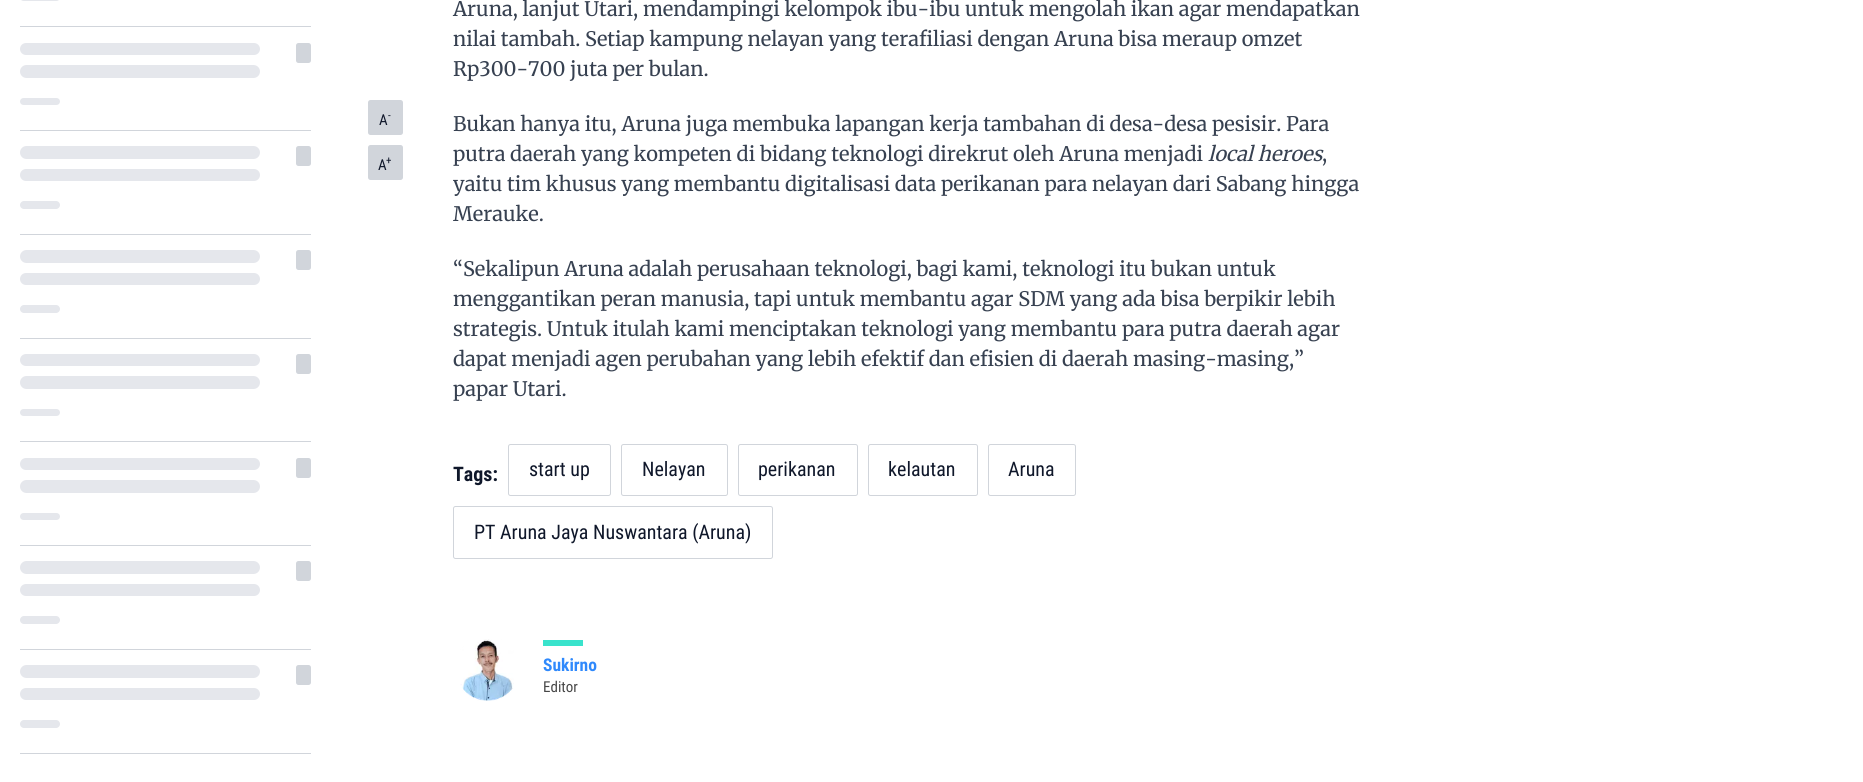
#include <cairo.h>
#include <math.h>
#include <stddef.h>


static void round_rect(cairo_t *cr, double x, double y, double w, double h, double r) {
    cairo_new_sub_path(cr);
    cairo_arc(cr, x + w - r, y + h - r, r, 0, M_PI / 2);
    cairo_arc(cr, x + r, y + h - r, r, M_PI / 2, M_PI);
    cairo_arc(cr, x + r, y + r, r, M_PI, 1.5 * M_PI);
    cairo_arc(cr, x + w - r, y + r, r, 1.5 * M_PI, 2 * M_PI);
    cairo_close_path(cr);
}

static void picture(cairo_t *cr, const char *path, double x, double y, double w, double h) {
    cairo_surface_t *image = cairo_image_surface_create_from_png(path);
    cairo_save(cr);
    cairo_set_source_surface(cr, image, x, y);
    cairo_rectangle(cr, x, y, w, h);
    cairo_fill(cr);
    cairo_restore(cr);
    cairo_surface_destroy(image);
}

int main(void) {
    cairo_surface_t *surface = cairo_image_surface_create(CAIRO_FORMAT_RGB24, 1863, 782);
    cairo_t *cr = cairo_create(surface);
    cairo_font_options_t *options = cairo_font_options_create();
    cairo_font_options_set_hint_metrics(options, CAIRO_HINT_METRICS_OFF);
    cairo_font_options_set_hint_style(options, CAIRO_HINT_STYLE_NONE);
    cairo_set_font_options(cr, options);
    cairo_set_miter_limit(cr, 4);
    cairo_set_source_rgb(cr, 1, 1, 1);
    cairo_paint(cr);
    cairo_set_source_rgb(cr, 0.82, 0.835, 0.859);
    cairo_rectangle(cr, 20, 26, 291, 1);
    cairo_fill(cr);
    cairo_set_source_rgb(cr, 0.898, 0.906, 0.922);
    round_rect(cr, 20, -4, 40, 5, 3.5);
    cairo_fill(cr);
    cairo_set_source_rgb(cr, 0.82, 0.835, 0.859);
    cairo_rectangle(cr, 20, 130, 291, 1);
    cairo_fill(cr);
    cairo_set_source_rgb(cr, 0.898, 0.906, 0.922);
    round_rect(cr, 20, 43, 240, 12, 6);
    cairo_fill(cr);
    round_rect(cr, 20, 65, 240, 13, 6.5);
    cairo_fill(cr);
    cairo_set_source_rgb(cr, 0.82, 0.835, 0.859);
    round_rect(cr, 296, 43, 15, 20, 2.5);
    cairo_fill(cr);
    cairo_set_source_rgb(cr, 0.898, 0.906, 0.922);
    round_rect(cr, 20, 98, 40, 7, 3.5);
    cairo_fill(cr);
    cairo_set_source_rgb(cr, 0.82, 0.835, 0.859);
    cairo_rectangle(cr, 20, 234, 291, 1);
    cairo_fill(cr);
    cairo_set_source_rgb(cr, 0.898, 0.906, 0.922);
    round_rect(cr, 20, 146, 240, 13, 6.5);
    cairo_fill(cr);
    round_rect(cr, 20, 169, 240, 12, 6);
    cairo_fill(cr);
    cairo_set_source_rgb(cr, 0.82, 0.835, 0.859);
    round_rect(cr, 296, 146, 15, 20, 2.5);
    cairo_fill(cr);
    cairo_set_source_rgb(cr, 0.898, 0.906, 0.922);
    round_rect(cr, 20, 201, 40, 8, 4);
    cairo_fill(cr);
    cairo_set_source_rgb(cr, 0.82, 0.835, 0.859);
    cairo_rectangle(cr, 20, 338, 291, 1);
    cairo_fill(cr);
    cairo_set_source_rgb(cr, 0.898, 0.906, 0.922);
    round_rect(cr, 20, 250, 240, 13, 6.5);
    cairo_fill(cr);
    round_rect(cr, 20, 273, 240, 12, 6);
    cairo_fill(cr);
    cairo_set_source_rgb(cr, 0.82, 0.835, 0.859);
    round_rect(cr, 296, 250, 15, 20, 2.5);
    cairo_fill(cr);
    cairo_set_source_rgb(cr, 0.898, 0.906, 0.922);
    round_rect(cr, 20, 305, 40, 8, 4);
    cairo_fill(cr);
    cairo_set_source_rgb(cr, 0.82, 0.835, 0.859);
    cairo_rectangle(cr, 20, 441, 291, 1);
    cairo_fill(cr);
    cairo_set_source_rgb(cr, 0.898, 0.906, 0.922);
    round_rect(cr, 20, 354, 240, 12, 6);
    cairo_fill(cr);
    round_rect(cr, 20, 376, 240, 13, 6.5);
    cairo_fill(cr);
    cairo_set_source_rgb(cr, 0.82, 0.835, 0.859);
    round_rect(cr, 296, 354, 15, 20, 2.5);
    cairo_fill(cr);
    cairo_set_source_rgb(cr, 0.898, 0.906, 0.922);
    round_rect(cr, 20, 409, 40, 7, 3.5);
    cairo_fill(cr);
    cairo_set_source_rgb(cr, 0.82, 0.835, 0.859);
    cairo_rectangle(cr, 20, 545, 291, 1);
    cairo_fill(cr);
    cairo_set_source_rgb(cr, 0.898, 0.906, 0.922);
    round_rect(cr, 20, 458, 240, 12, 6);
    cairo_fill(cr);
    round_rect(cr, 20, 480, 240, 13, 6.5);
    cairo_fill(cr);
    cairo_set_source_rgb(cr, 0.82, 0.835, 0.859);
    round_rect(cr, 296, 458, 15, 20, 2.5);
    cairo_fill(cr);
    cairo_set_source_rgb(cr, 0.898, 0.906, 0.922);
    round_rect(cr, 20, 513, 40, 7, 3.5);
    cairo_fill(cr);
    cairo_set_source_rgb(cr, 0.82, 0.835, 0.859);
    cairo_rectangle(cr, 20, 649, 291, 1);
    cairo_fill(cr);
    cairo_set_source_rgb(cr, 0.898, 0.906, 0.922);
    round_rect(cr, 20, 561, 240, 13, 6.5);
    cairo_fill(cr);
    round_rect(cr, 20, 584, 240, 12, 6);
    cairo_fill(cr);
    cairo_set_source_rgb(cr, 0.82, 0.835, 0.859);
    round_rect(cr, 296, 561, 15, 20, 2.5);
    cairo_fill(cr);
    cairo_set_source_rgb(cr, 0.898, 0.906, 0.922);
    round_rect(cr, 20, 616, 40, 8, 4);
    cairo_fill(cr);
    cairo_set_source_rgb(cr, 0.82, 0.835, 0.859);
    cairo_rectangle(cr, 20, 753, 291, 1);
    cairo_fill(cr);
    cairo_set_source_rgb(cr, 0.898, 0.906, 0.922);
    round_rect(cr, 20, 665, 240, 13, 6.5);
    cairo_fill(cr);
    round_rect(cr, 20, 688, 240, 12, 6);
    cairo_fill(cr);
    cairo_set_source_rgb(cr, 0.82, 0.835, 0.859);
    round_rect(cr, 296, 665, 15, 20, 2.5);
    cairo_fill(cr);
    cairo_set_source_rgb(cr, 0.898, 0.906, 0.922);
    round_rect(cr, 20, 720, 40, 8, 4);
    cairo_fill(cr);
    cairo_set_source_rgb(cr, 0.82, 0.835, 0.859);
    round_rect(cr, 368, 100, 35, 35, 2.5);
    cairo_fill(cr);
    cairo_select_font_face(cr, "Roboto Condensed", CAIRO_FONT_SLANT_NORMAL, CAIRO_FONT_WEIGHT_NORMAL);
    cairo_set_font_size(cr, 15);
    cairo_set_source_rgb(cr, 0.059, 0.09, 0.165);
    cairo_move_to(cr, 379, 125);
    cairo_show_text(cr, "A");
    cairo_set_font_size(cr, 11);
    cairo_move_to(cr, 388, 119);
    cairo_show_text(cr, "-");
    cairo_set_source_rgb(cr, 0.82, 0.835, 0.859);
    round_rect(cr, 368, 145, 35, 35, 2.5);
    cairo_fill(cr);
    cairo_set_font_size(cr, 15);
    cairo_set_source_rgb(cr, 0.059, 0.09, 0.165);
    cairo_move_to(cr, 378, 170);
    cairo_show_text(cr, "A");
    cairo_set_font_size(cr, 11);
    cairo_move_to(cr, 386, 164);
    cairo_show_text(cr, "+");
    cairo_select_font_face(cr, "Merriweather", CAIRO_FONT_SLANT_NORMAL, CAIRO_FONT_WEIGHT_NORMAL);
    cairo_set_font_size(cr, 20);
    cairo_set_source_rgb(cr, 0.216, 0.255, 0.318);
    cairo_move_to(cr, 453, 16);
    cairo_show_text(cr, "Aruna, lanjut Utari, mendampingi kelompok ibu-ibu untuk mengolah ikan agar mendapatkan");
    cairo_move_to(cr, 453, 46);
    cairo_show_text(cr, "nilai tambah. Setiap kampung nelayan yang terafiliasi dengan Aruna bisa meraup omzet");
    cairo_move_to(cr, 453, 76);
    cairo_show_text(cr, "Rp300-700 juta per bulan.");
    cairo_move_to(cr, 453, 131);
    cairo_show_text(cr, "Bukan hanya itu, Aruna juga membuka lapangan kerja tambahan di desa-desa pesisir. Para");
    cairo_move_to(cr, 453, 161);
    cairo_show_text(cr, "putra daerah yang kompeten di bidang teknologi direkrut oleh Aruna menjadi");
    cairo_select_font_face(cr, "Merriweather", CAIRO_FONT_SLANT_ITALIC, CAIRO_FONT_WEIGHT_NORMAL);
    cairo_move_to(cr, 1208, 161);
    cairo_show_text(cr, "local heroes");
    cairo_select_font_face(cr, "Merriweather", CAIRO_FONT_SLANT_NORMAL, CAIRO_FONT_WEIGHT_NORMAL);
    cairo_move_to(cr, 1322, 161);
    cairo_show_text(cr, ",");
    cairo_move_to(cr, 453, 191);
    cairo_show_text(cr, "yaitu tim khusus yang membantu digitalisasi data perikanan para nelayan dari Sabang hingga");
    cairo_move_to(cr, 453, 221);
    cairo_show_text(cr, "Merauke.");
    cairo_move_to(cr, 453, 276);
    cairo_show_text(cr, "“Sekalipun Aruna adalah perusahaan teknologi, bagi kami, teknologi itu bukan untuk");
    cairo_move_to(cr, 453, 306);
    cairo_show_text(cr, "menggantikan peran manusia, tapi untuk membantu agar SDM yang ada bisa berpikir lebih");
    cairo_move_to(cr, 453, 336);
    cairo_show_text(cr, "strategis. Untuk itulah kami menciptakan teknologi yang membantu para putra daerah agar");
    cairo_move_to(cr, 453, 366);
    cairo_show_text(cr, "dapat menjadi agen perubahan yang lebih efektif dan efisien di daerah masing-masing,”");
    cairo_move_to(cr, 453, 396);
    cairo_show_text(cr, "papar Utari.");
    cairo_select_font_face(cr, "Roboto Condensed", CAIRO_FONT_SLANT_NORMAL, CAIRO_FONT_WEIGHT_BOLD);
    cairo_set_source_rgb(cr, 0.059, 0.09, 0.165);
    cairo_move_to(cr, 453, 481);
    cairo_show_text(cr, "Tags:");
    round_rect(cr, 508.5, 444.5, 102, 51, 2);
    cairo_set_source_rgb(cr, 0.82, 0.835, 0.859);
    cairo_set_line_width(cr, 1);
    cairo_stroke(cr);
    cairo_select_font_face(cr, "Roboto Condensed", CAIRO_FONT_SLANT_NORMAL, CAIRO_FONT_WEIGHT_NORMAL);
    cairo_set_source_rgb(cr, 0.059, 0.09, 0.165);
    cairo_move_to(cr, 529, 476);
    cairo_show_text(cr, "start up");
    round_rect(cr, 621.5, 444.5, 106, 51, 2);
    cairo_set_source_rgb(cr, 0.82, 0.835, 0.859);
    cairo_stroke(cr);
    cairo_set_source_rgb(cr, 0.059, 0.09, 0.165);
    cairo_move_to(cr, 642, 476);
    cairo_show_text(cr, "Nelayan");
    round_rect(cr, 738.5, 444.5, 119, 51, 2);
    cairo_set_source_rgb(cr, 0.82, 0.835, 0.859);
    cairo_stroke(cr);
    cairo_set_source_rgb(cr, 0.059, 0.09, 0.165);
    cairo_move_to(cr, 758, 476);
    cairo_show_text(cr, "perikanan");
    round_rect(cr, 868.5, 444.5, 109, 51, 2);
    cairo_set_source_rgb(cr, 0.82, 0.835, 0.859);
    cairo_stroke(cr);
    cairo_set_source_rgb(cr, 0.059, 0.09, 0.165);
    cairo_move_to(cr, 888, 476);
    cairo_show_text(cr, "kelautan");
    round_rect(cr, 988.5, 444.5, 87, 51, 2);
    cairo_set_source_rgb(cr, 0.82, 0.835, 0.859);
    cairo_stroke(cr);
    cairo_set_source_rgb(cr, 0.059, 0.09, 0.165);
    cairo_move_to(cr, 1008, 476);
    cairo_show_text(cr, "Aruna");
    round_rect(cr, 453.5, 506.5, 319, 52, 2);
    cairo_set_source_rgb(cr, 0.82, 0.835, 0.859);
    cairo_stroke(cr);
    cairo_set_source_rgb(cr, 0.059, 0.09, 0.165);
    cairo_move_to(cr, 474, 539);
    cairo_show_text(cr, "PT Aruna Jaya Nuswantara (Aruna)");
    picture(cr, "img1.png", 460, 639, 54, 62);
    cairo_set_source_rgb(cr, 0.224, 0.89, 0.8);
    cairo_rectangle(cr, 543, 640, 40, 6);
    cairo_fill(cr);
    cairo_select_font_face(cr, "Roboto Condensed", CAIRO_FONT_SLANT_NORMAL, CAIRO_FONT_WEIGHT_BOLD);
    cairo_set_font_size(cr, 17.5);
    cairo_set_source_rgb(cr, 0.184, 0.537, 0.988);
    cairo_move_to(cr, 543, 671);
    cairo_show_text(cr, "Sukirno");
    cairo_select_font_face(cr, "Roboto Condensed", CAIRO_FONT_SLANT_NORMAL, CAIRO_FONT_WEIGHT_NORMAL);
    cairo_set_font_size(cr, 15);
    cairo_set_source_rgb(cr, 0.278, 0.278, 0.278);
    cairo_move_to(cr, 543, 692);
    cairo_show_text(cr, "Editor");
    cairo_surface_write_to_png(surface, "page.png");
    cairo_font_options_destroy(options);
    cairo_destroy(cr);
    cairo_surface_destroy(surface);
    return 0;
}
